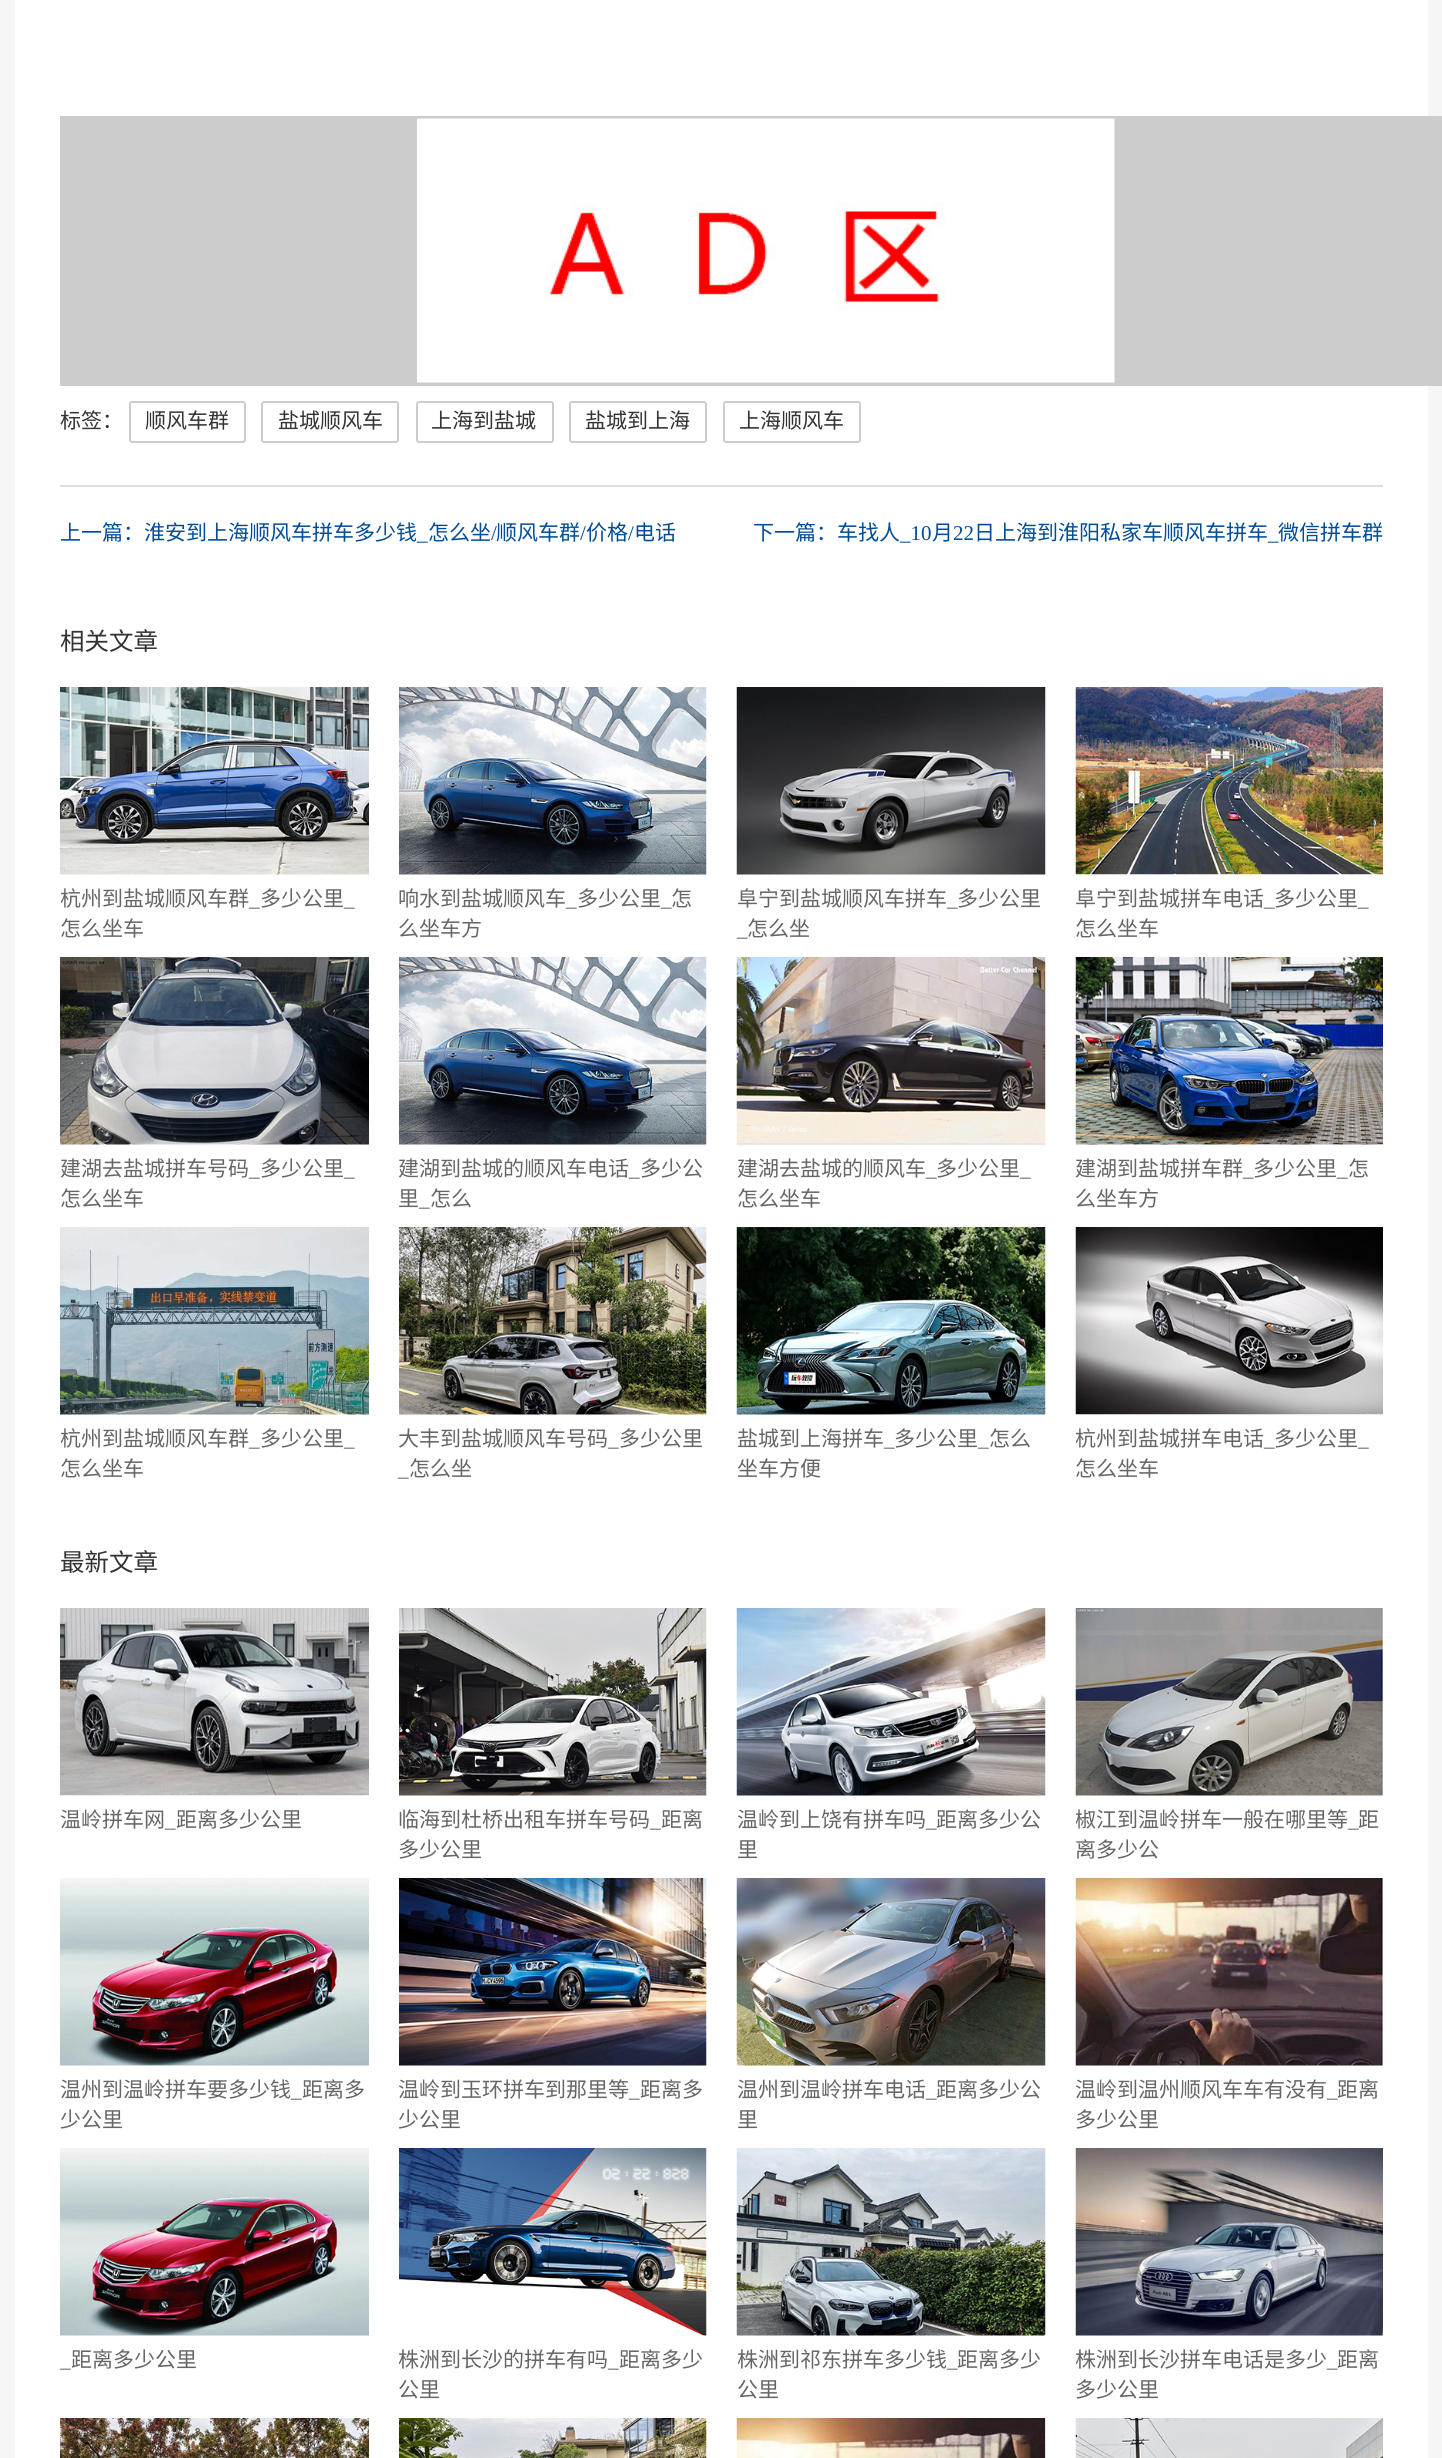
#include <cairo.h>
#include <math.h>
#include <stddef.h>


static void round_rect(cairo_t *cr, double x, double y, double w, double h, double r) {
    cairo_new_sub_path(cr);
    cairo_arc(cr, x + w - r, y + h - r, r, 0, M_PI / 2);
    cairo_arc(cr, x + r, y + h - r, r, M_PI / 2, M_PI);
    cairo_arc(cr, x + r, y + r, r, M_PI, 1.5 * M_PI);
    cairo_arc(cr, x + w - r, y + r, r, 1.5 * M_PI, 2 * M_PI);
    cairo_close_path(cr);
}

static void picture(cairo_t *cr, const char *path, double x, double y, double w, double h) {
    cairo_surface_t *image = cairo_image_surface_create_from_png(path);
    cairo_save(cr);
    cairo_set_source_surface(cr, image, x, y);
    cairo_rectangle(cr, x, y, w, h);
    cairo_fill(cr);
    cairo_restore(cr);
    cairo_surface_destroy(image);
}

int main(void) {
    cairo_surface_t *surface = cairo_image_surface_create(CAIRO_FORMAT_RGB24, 1442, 2458);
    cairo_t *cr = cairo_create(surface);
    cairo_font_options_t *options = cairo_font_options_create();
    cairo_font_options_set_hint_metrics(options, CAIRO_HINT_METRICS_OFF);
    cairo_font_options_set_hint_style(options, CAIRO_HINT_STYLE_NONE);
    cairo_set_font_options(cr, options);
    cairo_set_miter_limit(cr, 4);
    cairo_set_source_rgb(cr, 0.961, 0.961, 0.961);
    cairo_paint(cr);
    cairo_set_source_rgb(cr, 1, 1, 1);
    cairo_rectangle(cr, 15, 0, 1413, 2458);
    cairo_fill(cr);
    cairo_set_source_rgb(cr, 0.8, 0.8, 0.8);
    cairo_rectangle(cr, 60, 116, 1382, 270);
    cairo_fill(cr);
    picture(cr, "img1.png", 417, 118, 698, 265);
    cairo_select_font_face(cr, "Noto Sans CJK SC", CAIRO_FONT_SLANT_NORMAL, CAIRO_FONT_WEIGHT_NORMAL);
    cairo_set_font_size(cr, 21);
    cairo_set_source_rgb(cr, 0.2, 0.2, 0.2);
    cairo_move_to(cr, 60, 428);
    cairo_show_text(cr, "标签：");
    round_rect(cr, 130, 402, 115, 40, 2);
    cairo_set_source_rgb(cr, 0.8, 0.8, 0.8);
    cairo_stroke(cr);
    cairo_set_source_rgb(cr, 0.2, 0.2, 0.2);
    cairo_move_to(cr, 145, 428);
    cairo_show_text(cr, "顺风车群");
    round_rect(cr, 262, 402, 136, 40, 2);
    cairo_set_source_rgb(cr, 0.8, 0.8, 0.8);
    cairo_stroke(cr);
    cairo_set_source_rgb(cr, 0.2, 0.2, 0.2);
    cairo_move_to(cr, 278, 428);
    cairo_show_text(cr, "盐城顺风车");
    round_rect(cr, 417, 402, 136, 40, 2);
    cairo_set_source_rgb(cr, 0.8, 0.8, 0.8);
    cairo_stroke(cr);
    cairo_set_source_rgb(cr, 0.2, 0.2, 0.2);
    cairo_move_to(cr, 431, 428);
    cairo_show_text(cr, "上海到盐城");
    round_rect(cr, 570, 402, 136, 40, 2);
    cairo_set_source_rgb(cr, 0.8, 0.8, 0.8);
    cairo_stroke(cr);
    cairo_set_source_rgb(cr, 0.2, 0.2, 0.2);
    cairo_move_to(cr, 585, 428);
    cairo_show_text(cr, "盐城到上海");
    round_rect(cr, 724, 402, 136, 40, 2);
    cairo_set_source_rgb(cr, 0.8, 0.8, 0.8);
    cairo_stroke(cr);
    cairo_set_source_rgb(cr, 0.2, 0.2, 0.2);
    cairo_move_to(cr, 739, 428);
    cairo_show_text(cr, "上海顺风车");
    cairo_set_source_rgb(cr, 0.867, 0.867, 0.867);
    cairo_rectangle(cr, 60, 485, 1323, 2);
    cairo_fill(cr);
    cairo_set_source_rgb(cr, 0, 0.298, 0.596);
    cairo_move_to(cr, 60, 540);
    cairo_show_text(cr, "上一篇：淮安到上海顺风车拼车多少钱");
    cairo_move_to(cr, 428, 540);
    cairo_show_text(cr, "怎么坐");
    cairo_select_font_face(cr, "Liberation Serif", CAIRO_FONT_SLANT_NORMAL, CAIRO_FONT_WEIGHT_NORMAL);
    cairo_move_to(cr, 491, 540);
    cairo_show_text(cr, "/");
    cairo_select_font_face(cr, "Noto Sans CJK SC", CAIRO_FONT_SLANT_NORMAL, CAIRO_FONT_WEIGHT_NORMAL);
    cairo_move_to(cr, 496, 540);
    cairo_show_text(cr, "顺风车群");
    cairo_select_font_face(cr, "Liberation Serif", CAIRO_FONT_SLANT_NORMAL, CAIRO_FONT_WEIGHT_NORMAL);
    cairo_move_to(cr, 580, 540);
    cairo_show_text(cr, "/");
    cairo_select_font_face(cr, "Noto Sans CJK SC", CAIRO_FONT_SLANT_NORMAL, CAIRO_FONT_WEIGHT_NORMAL);
    cairo_move_to(cr, 586, 540);
    cairo_show_text(cr, "价格");
    cairo_select_font_face(cr, "Liberation Serif", CAIRO_FONT_SLANT_NORMAL, CAIRO_FONT_WEIGHT_NORMAL);
    cairo_move_to(cr, 628, 540);
    cairo_show_text(cr, "/");
    cairo_select_font_face(cr, "Noto Sans CJK SC", CAIRO_FONT_SLANT_NORMAL, CAIRO_FONT_WEIGHT_NORMAL);
    cairo_move_to(cr, 634, 540);
    cairo_show_text(cr, "电话");
    cairo_select_font_face(cr, "Liberation Serif", CAIRO_FONT_SLANT_NORMAL, CAIRO_FONT_WEIGHT_NORMAL);
    cairo_move_to(cr, 417, 540);
    cairo_show_text(cr, "_");
    cairo_select_font_face(cr, "Noto Sans CJK SC", CAIRO_FONT_SLANT_NORMAL, CAIRO_FONT_WEIGHT_NORMAL);
    cairo_move_to(cr, 753, 540);
    cairo_show_text(cr, "下一篇：车找人");
    cairo_select_font_face(cr, "Liberation Serif", CAIRO_FONT_SLANT_NORMAL, CAIRO_FONT_WEIGHT_NORMAL);
    cairo_move_to(cr, 900, 540);
    cairo_show_text(cr, "_10");
    cairo_select_font_face(cr, "Noto Sans CJK SC", CAIRO_FONT_SLANT_NORMAL, CAIRO_FONT_WEIGHT_NORMAL);
    cairo_move_to(cr, 932, 540);
    cairo_show_text(cr, "月");
    cairo_select_font_face(cr, "Liberation Serif", CAIRO_FONT_SLANT_NORMAL, CAIRO_FONT_WEIGHT_NORMAL);
    cairo_move_to(cr, 953, 540);
    cairo_show_text(cr, "22");
    cairo_select_font_face(cr, "Noto Sans CJK SC", CAIRO_FONT_SLANT_NORMAL, CAIRO_FONT_WEIGHT_NORMAL);
    cairo_move_to(cr, 974, 540);
    cairo_show_text(cr, "日上海到淮阳私家车顺风车拼车");
    cairo_select_font_face(cr, "Liberation Serif", CAIRO_FONT_SLANT_NORMAL, CAIRO_FONT_WEIGHT_NORMAL);
    cairo_move_to(cr, 1268, 540);
    cairo_show_text(cr, "_");
    cairo_select_font_face(cr, "Noto Sans CJK SC", CAIRO_FONT_SLANT_NORMAL, CAIRO_FONT_WEIGHT_NORMAL);
    cairo_move_to(cr, 1278, 540);
    cairo_show_text(cr, "微信拼车群");
    cairo_set_font_size(cr, 24.5);
    cairo_set_source_rgb(cr, 0.2, 0.2, 0.2);
    cairo_move_to(cr, 60, 650);
    cairo_show_text(cr, "相关文章");
    picture(cr, "img2.png", 60, 687, 309, 188);
    cairo_set_font_size(cr, 21);
    cairo_set_source_rgb(cr, 0.4, 0.4, 0.4);
    cairo_move_to(cr, 60, 906);
    cairo_show_text(cr, "杭州到盐城顺风车群");
    cairo_select_font_face(cr, "Liberation Serif", CAIRO_FONT_SLANT_NORMAL, CAIRO_FONT_WEIGHT_NORMAL);
    cairo_move_to(cr, 249, 906);
    cairo_show_text(cr, "_");
    cairo_select_font_face(cr, "Noto Sans CJK SC", CAIRO_FONT_SLANT_NORMAL, CAIRO_FONT_WEIGHT_NORMAL);
    cairo_move_to(cr, 260, 906);
    cairo_show_text(cr, "多少公里");
    cairo_select_font_face(cr, "Liberation Serif", CAIRO_FONT_SLANT_NORMAL, CAIRO_FONT_WEIGHT_NORMAL);
    cairo_move_to(cr, 344, 906);
    cairo_show_text(cr, "_");
    cairo_select_font_face(cr, "Noto Sans CJK SC", CAIRO_FONT_SLANT_NORMAL, CAIRO_FONT_WEIGHT_NORMAL);
    cairo_move_to(cr, 60, 936);
    cairo_show_text(cr, "怎么坐车");
    picture(cr, "img3.png", 399, 687, 308, 188);
    cairo_move_to(cr, 398, 906);
    cairo_show_text(cr, "响水到盐城顺风车");
    cairo_select_font_face(cr, "Liberation Serif", CAIRO_FONT_SLANT_NORMAL, CAIRO_FONT_WEIGHT_NORMAL);
    cairo_move_to(cr, 566, 906);
    cairo_show_text(cr, "_");
    cairo_select_font_face(cr, "Noto Sans CJK SC", CAIRO_FONT_SLANT_NORMAL, CAIRO_FONT_WEIGHT_NORMAL);
    cairo_move_to(cr, 577, 906);
    cairo_show_text(cr, "多少公里");
    cairo_select_font_face(cr, "Liberation Serif", CAIRO_FONT_SLANT_NORMAL, CAIRO_FONT_WEIGHT_NORMAL);
    cairo_move_to(cr, 661, 906);
    cairo_show_text(cr, "_");
    cairo_select_font_face(cr, "Noto Sans CJK SC", CAIRO_FONT_SLANT_NORMAL, CAIRO_FONT_WEIGHT_NORMAL);
    cairo_move_to(cr, 671, 906);
    cairo_show_text(cr, "怎");
    cairo_move_to(cr, 398, 936);
    cairo_show_text(cr, "么坐车方");
    picture(cr, "img4.png", 736, 687, 310, 188);
    cairo_move_to(cr, 737, 906);
    cairo_show_text(cr, "阜宁到盐城顺风车拼车");
    cairo_select_font_face(cr, "Liberation Serif", CAIRO_FONT_SLANT_NORMAL, CAIRO_FONT_WEIGHT_NORMAL);
    cairo_move_to(cr, 947, 906);
    cairo_show_text(cr, "_");
    cairo_select_font_face(cr, "Noto Sans CJK SC", CAIRO_FONT_SLANT_NORMAL, CAIRO_FONT_WEIGHT_NORMAL);
    cairo_move_to(cr, 957, 906);
    cairo_show_text(cr, "多少公里");
    cairo_select_font_face(cr, "Liberation Serif", CAIRO_FONT_SLANT_NORMAL, CAIRO_FONT_WEIGHT_NORMAL);
    cairo_move_to(cr, 737, 936);
    cairo_show_text(cr, "_");
    cairo_select_font_face(cr, "Noto Sans CJK SC", CAIRO_FONT_SLANT_NORMAL, CAIRO_FONT_WEIGHT_NORMAL);
    cairo_move_to(cr, 747, 936);
    cairo_show_text(cr, "怎么坐");
    picture(cr, "img5.png", 1075, 687, 308, 188);
    cairo_move_to(cr, 1075, 906);
    cairo_show_text(cr, "阜宁到盐城拼车电话");
    cairo_select_font_face(cr, "Liberation Serif", CAIRO_FONT_SLANT_NORMAL, CAIRO_FONT_WEIGHT_NORMAL);
    cairo_move_to(cr, 1264, 906);
    cairo_show_text(cr, "_");
    cairo_select_font_face(cr, "Noto Sans CJK SC", CAIRO_FONT_SLANT_NORMAL, CAIRO_FONT_WEIGHT_NORMAL);
    cairo_move_to(cr, 1274, 906);
    cairo_show_text(cr, "多少公里");
    cairo_select_font_face(cr, "Liberation Serif", CAIRO_FONT_SLANT_NORMAL, CAIRO_FONT_WEIGHT_NORMAL);
    cairo_move_to(cr, 1358, 906);
    cairo_show_text(cr, "_");
    cairo_select_font_face(cr, "Noto Sans CJK SC", CAIRO_FONT_SLANT_NORMAL, CAIRO_FONT_WEIGHT_NORMAL);
    cairo_move_to(cr, 1075, 936);
    cairo_show_text(cr, "怎么坐车");
    picture(cr, "img6.png", 60, 957, 309, 188);
    cairo_move_to(cr, 60, 1176);
    cairo_show_text(cr, "建湖去盐城拼车号码");
    cairo_select_font_face(cr, "Liberation Serif", CAIRO_FONT_SLANT_NORMAL, CAIRO_FONT_WEIGHT_NORMAL);
    cairo_move_to(cr, 249, 1176);
    cairo_show_text(cr, "_");
    cairo_select_font_face(cr, "Noto Sans CJK SC", CAIRO_FONT_SLANT_NORMAL, CAIRO_FONT_WEIGHT_NORMAL);
    cairo_move_to(cr, 260, 1176);
    cairo_show_text(cr, "多少公里");
    cairo_select_font_face(cr, "Liberation Serif", CAIRO_FONT_SLANT_NORMAL, CAIRO_FONT_WEIGHT_NORMAL);
    cairo_move_to(cr, 344, 1176);
    cairo_show_text(cr, "_");
    cairo_select_font_face(cr, "Noto Sans CJK SC", CAIRO_FONT_SLANT_NORMAL, CAIRO_FONT_WEIGHT_NORMAL);
    cairo_move_to(cr, 60, 1206);
    cairo_show_text(cr, "怎么坐车");
    picture(cr, "img3.png", 399, 957, 308, 188);
    cairo_move_to(cr, 398, 1176);
    cairo_show_text(cr, "建湖到盐城的顺风车电话");
    cairo_select_font_face(cr, "Liberation Serif", CAIRO_FONT_SLANT_NORMAL, CAIRO_FONT_WEIGHT_NORMAL);
    cairo_move_to(cr, 629, 1176);
    cairo_show_text(cr, "_");
    cairo_select_font_face(cr, "Noto Sans CJK SC", CAIRO_FONT_SLANT_NORMAL, CAIRO_FONT_WEIGHT_NORMAL);
    cairo_move_to(cr, 640, 1176);
    cairo_show_text(cr, "多少公");
    cairo_move_to(cr, 398, 1206);
    cairo_show_text(cr, "里");
    cairo_select_font_face(cr, "Liberation Serif", CAIRO_FONT_SLANT_NORMAL, CAIRO_FONT_WEIGHT_NORMAL);
    cairo_move_to(cr, 419, 1206);
    cairo_show_text(cr, "_");
    cairo_select_font_face(cr, "Noto Sans CJK SC", CAIRO_FONT_SLANT_NORMAL, CAIRO_FONT_WEIGHT_NORMAL);
    cairo_move_to(cr, 430, 1206);
    cairo_show_text(cr, "怎么");
    picture(cr, "img7.png", 736, 957, 310, 188);
    cairo_move_to(cr, 737, 1176);
    cairo_show_text(cr, "建湖去盐城的顺风车");
    cairo_select_font_face(cr, "Liberation Serif", CAIRO_FONT_SLANT_NORMAL, CAIRO_FONT_WEIGHT_NORMAL);
    cairo_move_to(cr, 926, 1176);
    cairo_show_text(cr, "_");
    cairo_select_font_face(cr, "Noto Sans CJK SC", CAIRO_FONT_SLANT_NORMAL, CAIRO_FONT_WEIGHT_NORMAL);
    cairo_move_to(cr, 936, 1176);
    cairo_show_text(cr, "多少公里");
    cairo_select_font_face(cr, "Liberation Serif", CAIRO_FONT_SLANT_NORMAL, CAIRO_FONT_WEIGHT_NORMAL);
    cairo_move_to(cr, 1020, 1176);
    cairo_show_text(cr, "_");
    cairo_select_font_face(cr, "Noto Sans CJK SC", CAIRO_FONT_SLANT_NORMAL, CAIRO_FONT_WEIGHT_NORMAL);
    cairo_move_to(cr, 737, 1206);
    cairo_show_text(cr, "怎么坐车");
    picture(cr, "img8.png", 1075, 957, 308, 188);
    cairo_move_to(cr, 1075, 1176);
    cairo_show_text(cr, "建湖到盐城拼车群");
    cairo_select_font_face(cr, "Liberation Serif", CAIRO_FONT_SLANT_NORMAL, CAIRO_FONT_WEIGHT_NORMAL);
    cairo_move_to(cr, 1243, 1176);
    cairo_show_text(cr, "_");
    cairo_select_font_face(cr, "Noto Sans CJK SC", CAIRO_FONT_SLANT_NORMAL, CAIRO_FONT_WEIGHT_NORMAL);
    cairo_move_to(cr, 1253, 1176);
    cairo_show_text(cr, "多少公里");
    cairo_select_font_face(cr, "Liberation Serif", CAIRO_FONT_SLANT_NORMAL, CAIRO_FONT_WEIGHT_NORMAL);
    cairo_move_to(cr, 1337, 1176);
    cairo_show_text(cr, "_");
    cairo_select_font_face(cr, "Noto Sans CJK SC", CAIRO_FONT_SLANT_NORMAL, CAIRO_FONT_WEIGHT_NORMAL);
    cairo_move_to(cr, 1348, 1176);
    cairo_show_text(cr, "怎");
    cairo_move_to(cr, 1075, 1206);
    cairo_show_text(cr, "么坐车方");
    picture(cr, "img9.png", 60, 1227, 309, 188);
    cairo_move_to(cr, 60, 1446);
    cairo_show_text(cr, "杭州到盐城顺风车群");
    cairo_select_font_face(cr, "Liberation Serif", CAIRO_FONT_SLANT_NORMAL, CAIRO_FONT_WEIGHT_NORMAL);
    cairo_move_to(cr, 249, 1446);
    cairo_show_text(cr, "_");
    cairo_select_font_face(cr, "Noto Sans CJK SC", CAIRO_FONT_SLANT_NORMAL, CAIRO_FONT_WEIGHT_NORMAL);
    cairo_move_to(cr, 260, 1446);
    cairo_show_text(cr, "多少公里");
    cairo_select_font_face(cr, "Liberation Serif", CAIRO_FONT_SLANT_NORMAL, CAIRO_FONT_WEIGHT_NORMAL);
    cairo_move_to(cr, 344, 1446);
    cairo_show_text(cr, "_");
    cairo_select_font_face(cr, "Noto Sans CJK SC", CAIRO_FONT_SLANT_NORMAL, CAIRO_FONT_WEIGHT_NORMAL);
    cairo_move_to(cr, 60, 1476);
    cairo_show_text(cr, "怎么坐车");
    picture(cr, "img10.png", 399, 1227, 308, 188);
    cairo_move_to(cr, 398, 1446);
    cairo_show_text(cr, "大丰到盐城顺风车号码");
    cairo_select_font_face(cr, "Liberation Serif", CAIRO_FONT_SLANT_NORMAL, CAIRO_FONT_WEIGHT_NORMAL);
    cairo_move_to(cr, 608, 1446);
    cairo_show_text(cr, "_");
    cairo_select_font_face(cr, "Noto Sans CJK SC", CAIRO_FONT_SLANT_NORMAL, CAIRO_FONT_WEIGHT_NORMAL);
    cairo_move_to(cr, 619, 1446);
    cairo_show_text(cr, "多少公里");
    cairo_select_font_face(cr, "Liberation Serif", CAIRO_FONT_SLANT_NORMAL, CAIRO_FONT_WEIGHT_NORMAL);
    cairo_move_to(cr, 398, 1476);
    cairo_show_text(cr, "_");
    cairo_select_font_face(cr, "Noto Sans CJK SC", CAIRO_FONT_SLANT_NORMAL, CAIRO_FONT_WEIGHT_NORMAL);
    cairo_move_to(cr, 409, 1476);
    cairo_show_text(cr, "怎么坐");
    picture(cr, "img11.png", 736, 1227, 310, 188);
    cairo_move_to(cr, 737, 1446);
    cairo_show_text(cr, "盐城到上海拼车");
    cairo_select_font_face(cr, "Liberation Serif", CAIRO_FONT_SLANT_NORMAL, CAIRO_FONT_WEIGHT_NORMAL);
    cairo_move_to(cr, 884, 1446);
    cairo_show_text(cr, "_");
    cairo_select_font_face(cr, "Noto Sans CJK SC", CAIRO_FONT_SLANT_NORMAL, CAIRO_FONT_WEIGHT_NORMAL);
    cairo_move_to(cr, 894, 1446);
    cairo_show_text(cr, "多少公里");
    cairo_select_font_face(cr, "Liberation Serif", CAIRO_FONT_SLANT_NORMAL, CAIRO_FONT_WEIGHT_NORMAL);
    cairo_move_to(cr, 978, 1446);
    cairo_show_text(cr, "_");
    cairo_select_font_face(cr, "Noto Sans CJK SC", CAIRO_FONT_SLANT_NORMAL, CAIRO_FONT_WEIGHT_NORMAL);
    cairo_move_to(cr, 989, 1446);
    cairo_show_text(cr, "怎么");
    cairo_move_to(cr, 737, 1476);
    cairo_show_text(cr, "坐车方便");
    picture(cr, "img12.png", 1075, 1227, 308, 188);
    cairo_save(cr);
    cairo_rectangle(cr, 1076, 1227, 307, 255);
    cairo_clip(cr);
    cairo_move_to(cr, 1075, 1446);
    cairo_show_text(cr, "杭州到盐城拼车电话");
    cairo_restore(cr);
    cairo_select_font_face(cr, "Liberation Serif", CAIRO_FONT_SLANT_NORMAL, CAIRO_FONT_WEIGHT_NORMAL);
    cairo_move_to(cr, 1264, 1446);
    cairo_show_text(cr, "_");
    cairo_select_font_face(cr, "Noto Sans CJK SC", CAIRO_FONT_SLANT_NORMAL, CAIRO_FONT_WEIGHT_NORMAL);
    cairo_move_to(cr, 1274, 1446);
    cairo_show_text(cr, "多少公里");
    cairo_select_font_face(cr, "Liberation Serif", CAIRO_FONT_SLANT_NORMAL, CAIRO_FONT_WEIGHT_NORMAL);
    cairo_move_to(cr, 1358, 1446);
    cairo_show_text(cr, "_");
    cairo_select_font_face(cr, "Noto Sans CJK SC", CAIRO_FONT_SLANT_NORMAL, CAIRO_FONT_WEIGHT_NORMAL);
    cairo_move_to(cr, 1075, 1476);
    cairo_show_text(cr, "怎么坐车");
    cairo_set_font_size(cr, 24.5);
    cairo_set_source_rgb(cr, 0.2, 0.2, 0.2);
    cairo_move_to(cr, 60, 1571);
    cairo_show_text(cr, "最新文章");
    picture(cr, "img13.png", 60, 1608, 309, 188);
    cairo_set_font_size(cr, 21);
    cairo_set_source_rgb(cr, 0.4, 0.4, 0.4);
    cairo_move_to(cr, 60, 1827);
    cairo_show_text(cr, "温岭拼车网");
    cairo_select_font_face(cr, "Liberation Serif", CAIRO_FONT_SLANT_NORMAL, CAIRO_FONT_WEIGHT_NORMAL);
    cairo_move_to(cr, 165, 1827);
    cairo_show_text(cr, "_");
    cairo_select_font_face(cr, "Noto Sans CJK SC", CAIRO_FONT_SLANT_NORMAL, CAIRO_FONT_WEIGHT_NORMAL);
    cairo_move_to(cr, 176, 1827);
    cairo_show_text(cr, "距离多少公里");
    picture(cr, "img14.png", 399, 1608, 308, 188);
    cairo_move_to(cr, 398, 1827);
    cairo_show_text(cr, "临海到杜桥出租车拼车号码");
    cairo_select_font_face(cr, "Liberation Serif", CAIRO_FONT_SLANT_NORMAL, CAIRO_FONT_WEIGHT_NORMAL);
    cairo_move_to(cr, 650, 1827);
    cairo_show_text(cr, "_");
    cairo_select_font_face(cr, "Noto Sans CJK SC", CAIRO_FONT_SLANT_NORMAL, CAIRO_FONT_WEIGHT_NORMAL);
    cairo_move_to(cr, 661, 1827);
    cairo_show_text(cr, "距离");
    cairo_move_to(cr, 398, 1857);
    cairo_show_text(cr, "多少公里");
    picture(cr, "img15.png", 736, 1608, 310, 188);
    cairo_move_to(cr, 737, 1827);
    cairo_show_text(cr, "温岭到上饶有拼车吗");
    cairo_select_font_face(cr, "Liberation Serif", CAIRO_FONT_SLANT_NORMAL, CAIRO_FONT_WEIGHT_NORMAL);
    cairo_move_to(cr, 926, 1827);
    cairo_show_text(cr, "_");
    cairo_select_font_face(cr, "Noto Sans CJK SC", CAIRO_FONT_SLANT_NORMAL, CAIRO_FONT_WEIGHT_NORMAL);
    cairo_move_to(cr, 936, 1827);
    cairo_show_text(cr, "距离多少公");
    cairo_move_to(cr, 737, 1857);
    cairo_show_text(cr, "里");
    picture(cr, "img16.png", 1075, 1608, 308, 188);
    cairo_save(cr);
    cairo_rectangle(cr, 1076, 1608, 307, 255);
    cairo_clip(cr);
    cairo_move_to(cr, 1075, 1827);
    cairo_show_text(cr, "椒江到温岭拼车一般在哪里等");
    cairo_restore(cr);
    cairo_move_to(cr, 1358, 1827);
    cairo_show_text(cr, "距");
    cairo_select_font_face(cr, "Liberation Serif", CAIRO_FONT_SLANT_NORMAL, CAIRO_FONT_WEIGHT_NORMAL);
    cairo_move_to(cr, 1348, 1827);
    cairo_show_text(cr, "_");
    cairo_select_font_face(cr, "Noto Sans CJK SC", CAIRO_FONT_SLANT_NORMAL, CAIRO_FONT_WEIGHT_NORMAL);
    cairo_move_to(cr, 1075, 1857);
    cairo_show_text(cr, "离多少公");
    picture(cr, "img17.png", 60, 1878, 309, 188);
    cairo_move_to(cr, 60, 2097);
    cairo_show_text(cr, "温州到温岭拼车要多少钱");
    cairo_select_font_face(cr, "Liberation Serif", CAIRO_FONT_SLANT_NORMAL, CAIRO_FONT_WEIGHT_NORMAL);
    cairo_move_to(cr, 291, 2097);
    cairo_show_text(cr, "_");
    cairo_select_font_face(cr, "Noto Sans CJK SC", CAIRO_FONT_SLANT_NORMAL, CAIRO_FONT_WEIGHT_NORMAL);
    cairo_move_to(cr, 302, 2097);
    cairo_show_text(cr, "距离多");
    cairo_move_to(cr, 60, 2127);
    cairo_show_text(cr, "少公里");
    picture(cr, "img18.png", 399, 1878, 308, 188);
    cairo_move_to(cr, 398, 2097);
    cairo_show_text(cr, "温岭到玉环拼车到那里等");
    cairo_select_font_face(cr, "Liberation Serif", CAIRO_FONT_SLANT_NORMAL, CAIRO_FONT_WEIGHT_NORMAL);
    cairo_move_to(cr, 629, 2097);
    cairo_show_text(cr, "_");
    cairo_select_font_face(cr, "Noto Sans CJK SC", CAIRO_FONT_SLANT_NORMAL, CAIRO_FONT_WEIGHT_NORMAL);
    cairo_move_to(cr, 640, 2097);
    cairo_show_text(cr, "距离多");
    cairo_move_to(cr, 398, 2127);
    cairo_show_text(cr, "少公里");
    picture(cr, "img19.png", 736, 1878, 310, 188);
    cairo_move_to(cr, 737, 2097);
    cairo_show_text(cr, "温州到温岭拼车电话");
    cairo_select_font_face(cr, "Liberation Serif", CAIRO_FONT_SLANT_NORMAL, CAIRO_FONT_WEIGHT_NORMAL);
    cairo_move_to(cr, 926, 2097);
    cairo_show_text(cr, "_");
    cairo_select_font_face(cr, "Noto Sans CJK SC", CAIRO_FONT_SLANT_NORMAL, CAIRO_FONT_WEIGHT_NORMAL);
    cairo_move_to(cr, 936, 2097);
    cairo_show_text(cr, "距离多少公");
    cairo_move_to(cr, 737, 2127);
    cairo_show_text(cr, "里");
    picture(cr, "img20.png", 1075, 1878, 308, 188);
    cairo_move_to(cr, 1075, 2097);
    cairo_show_text(cr, "温岭到温州顺风车车有没有");
    cairo_select_font_face(cr, "Liberation Serif", CAIRO_FONT_SLANT_NORMAL, CAIRO_FONT_WEIGHT_NORMAL);
    cairo_move_to(cr, 1327, 2097);
    cairo_show_text(cr, "_");
    cairo_select_font_face(cr, "Noto Sans CJK SC", CAIRO_FONT_SLANT_NORMAL, CAIRO_FONT_WEIGHT_NORMAL);
    cairo_move_to(cr, 1337, 2097);
    cairo_show_text(cr, "距离");
    cairo_move_to(cr, 1075, 2127);
    cairo_show_text(cr, "多少公里");
    picture(cr, "img17.png", 60, 2148, 309, 188);
    cairo_select_font_face(cr, "Liberation Serif", CAIRO_FONT_SLANT_NORMAL, CAIRO_FONT_WEIGHT_NORMAL);
    cairo_move_to(cr, 60, 2367);
    cairo_show_text(cr, "_");
    cairo_select_font_face(cr, "Noto Sans CJK SC", CAIRO_FONT_SLANT_NORMAL, CAIRO_FONT_WEIGHT_NORMAL);
    cairo_move_to(cr, 71, 2367);
    cairo_show_text(cr, "距离多少公里");
    picture(cr, "img21.png", 399, 2148, 308, 188);
    cairo_move_to(cr, 398, 2367);
    cairo_show_text(cr, "株洲到长沙的拼车有吗");
    cairo_select_font_face(cr, "Liberation Serif", CAIRO_FONT_SLANT_NORMAL, CAIRO_FONT_WEIGHT_NORMAL);
    cairo_move_to(cr, 608, 2367);
    cairo_show_text(cr, "_");
    cairo_select_font_face(cr, "Noto Sans CJK SC", CAIRO_FONT_SLANT_NORMAL, CAIRO_FONT_WEIGHT_NORMAL);
    cairo_move_to(cr, 619, 2367);
    cairo_show_text(cr, "距离多少");
    cairo_move_to(cr, 398, 2397);
    cairo_show_text(cr, "公里");
    picture(cr, "img22.png", 736, 2148, 310, 188);
    cairo_move_to(cr, 737, 2367);
    cairo_show_text(cr, "株洲到祁东拼车多少钱");
    cairo_select_font_face(cr, "Liberation Serif", CAIRO_FONT_SLANT_NORMAL, CAIRO_FONT_WEIGHT_NORMAL);
    cairo_move_to(cr, 947, 2367);
    cairo_show_text(cr, "_");
    cairo_select_font_face(cr, "Noto Sans CJK SC", CAIRO_FONT_SLANT_NORMAL, CAIRO_FONT_WEIGHT_NORMAL);
    cairo_move_to(cr, 957, 2367);
    cairo_show_text(cr, "距离多少");
    cairo_move_to(cr, 737, 2397);
    cairo_show_text(cr, "公里");
    picture(cr, "img23.png", 1075, 2148, 308, 188);
    cairo_save(cr);
    cairo_rectangle(cr, 1076, 2148, 307, 255);
    cairo_clip(cr);
    cairo_move_to(cr, 1075, 2367);
    cairo_show_text(cr, "株洲到长沙拼车电话是多少");
    cairo_restore(cr);
    cairo_select_font_face(cr, "Liberation Serif", CAIRO_FONT_SLANT_NORMAL, CAIRO_FONT_WEIGHT_NORMAL);
    cairo_move_to(cr, 1327, 2367);
    cairo_show_text(cr, "_");
    cairo_select_font_face(cr, "Noto Sans CJK SC", CAIRO_FONT_SLANT_NORMAL, CAIRO_FONT_WEIGHT_NORMAL);
    cairo_move_to(cr, 1337, 2367);
    cairo_show_text(cr, "距离");
    cairo_move_to(cr, 1075, 2397);
    cairo_show_text(cr, "多少公里");
    picture(cr, "img24.png", 60, 2418, 309, 40);
    picture(cr, "img25.png", 399, 2418, 308, 40);
    picture(cr, "img26.png", 736, 2418, 310, 40);
    picture(cr, "img27.png", 1075, 2418, 308, 40);
    cairo_surface_write_to_png(surface, "page.png");
    cairo_font_options_destroy(options);
    cairo_destroy(cr);
    cairo_surface_destroy(surface);
    return 0;
}
